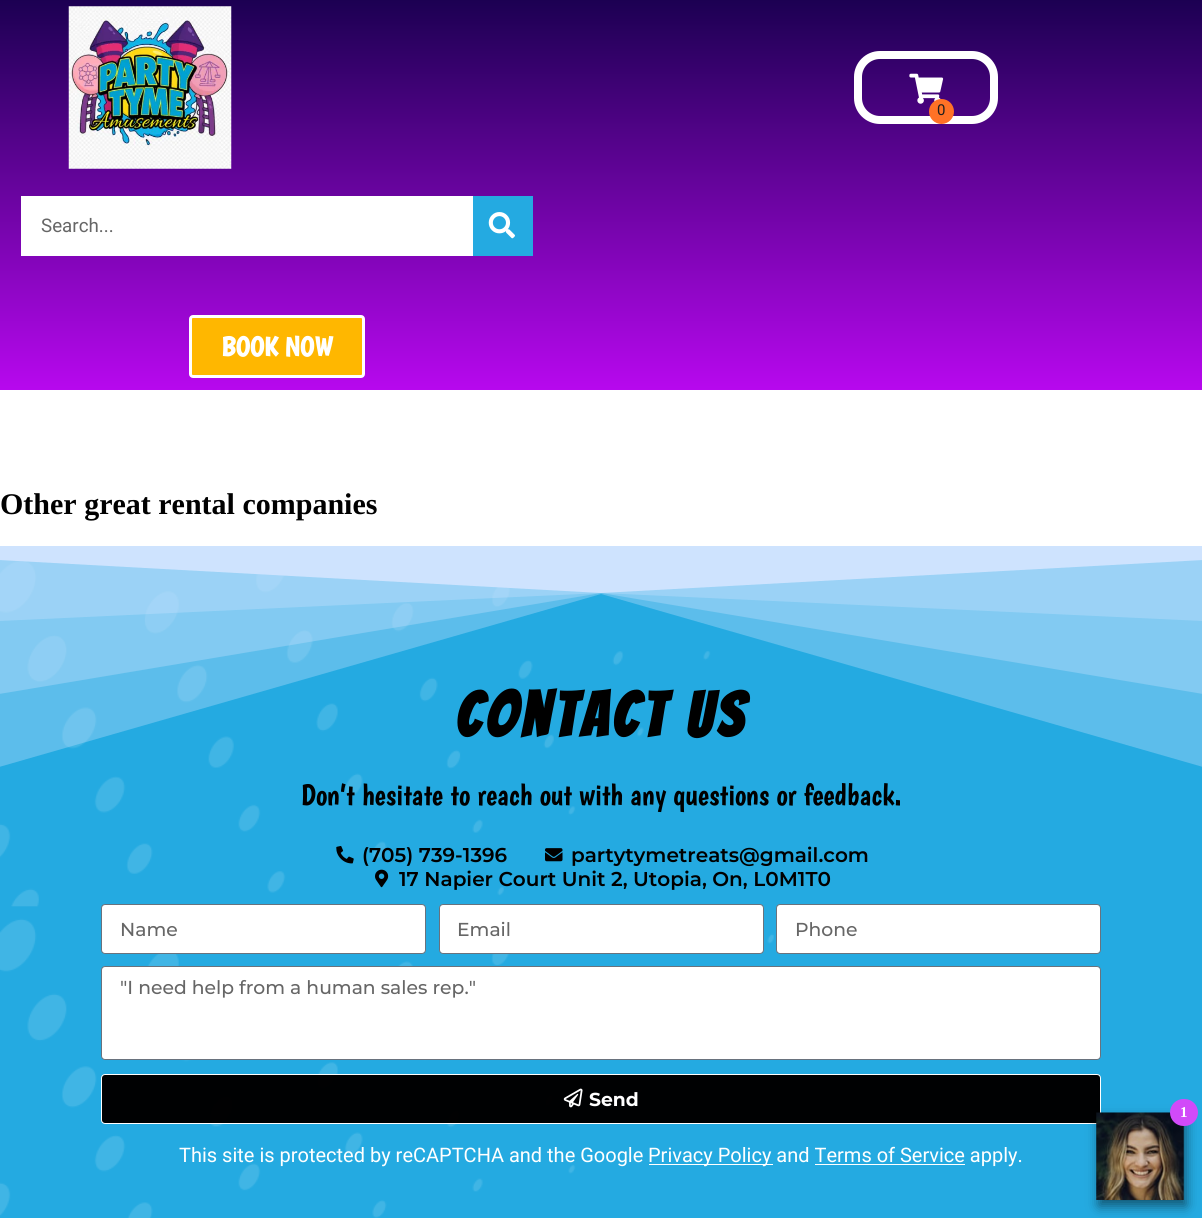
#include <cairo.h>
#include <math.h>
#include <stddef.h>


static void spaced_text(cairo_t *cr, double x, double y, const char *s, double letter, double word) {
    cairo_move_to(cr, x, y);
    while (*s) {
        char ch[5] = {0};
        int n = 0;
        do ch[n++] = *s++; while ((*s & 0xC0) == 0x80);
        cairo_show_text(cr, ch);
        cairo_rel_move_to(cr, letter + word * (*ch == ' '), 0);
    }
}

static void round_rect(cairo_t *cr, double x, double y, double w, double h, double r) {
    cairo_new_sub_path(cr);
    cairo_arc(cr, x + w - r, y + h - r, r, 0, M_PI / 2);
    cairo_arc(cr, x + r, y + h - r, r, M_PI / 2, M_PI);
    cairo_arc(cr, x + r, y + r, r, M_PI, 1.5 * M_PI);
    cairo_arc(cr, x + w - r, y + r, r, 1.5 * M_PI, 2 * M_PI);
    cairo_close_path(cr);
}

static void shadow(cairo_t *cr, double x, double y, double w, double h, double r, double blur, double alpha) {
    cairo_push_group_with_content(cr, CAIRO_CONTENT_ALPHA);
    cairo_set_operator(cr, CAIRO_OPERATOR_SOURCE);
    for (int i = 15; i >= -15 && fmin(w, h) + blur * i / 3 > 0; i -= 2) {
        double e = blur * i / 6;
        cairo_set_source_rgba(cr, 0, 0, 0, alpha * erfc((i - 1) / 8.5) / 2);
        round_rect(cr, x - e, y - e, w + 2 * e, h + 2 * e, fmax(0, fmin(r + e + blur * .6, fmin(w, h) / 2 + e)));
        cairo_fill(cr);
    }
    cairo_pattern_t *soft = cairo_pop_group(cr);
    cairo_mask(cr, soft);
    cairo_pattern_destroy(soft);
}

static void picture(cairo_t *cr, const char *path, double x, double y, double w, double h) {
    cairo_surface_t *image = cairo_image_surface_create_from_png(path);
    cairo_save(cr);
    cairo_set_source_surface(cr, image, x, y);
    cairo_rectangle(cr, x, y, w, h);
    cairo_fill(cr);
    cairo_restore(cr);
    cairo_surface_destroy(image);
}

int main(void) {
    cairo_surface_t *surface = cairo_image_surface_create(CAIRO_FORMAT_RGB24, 1202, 1218);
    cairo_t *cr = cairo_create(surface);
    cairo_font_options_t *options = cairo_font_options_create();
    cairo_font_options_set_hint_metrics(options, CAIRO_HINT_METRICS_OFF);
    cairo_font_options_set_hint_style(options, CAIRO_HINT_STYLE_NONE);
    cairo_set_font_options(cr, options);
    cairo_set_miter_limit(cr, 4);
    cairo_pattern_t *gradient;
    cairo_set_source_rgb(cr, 1, 1, 1);
    cairo_paint(cr);
    gradient = cairo_pattern_create_linear(601, 0, 601, 390);
    cairo_pattern_add_color_stop_rgba(gradient, 0, 0.11, 0, 0.322, 1);
    cairo_pattern_add_color_stop_rgba(gradient, 1, 0.718, 0.031, 0.933, 1);
    cairo_set_source(cr, gradient);
    cairo_pattern_destroy(gradient);
    cairo_rectangle(cr, 0, 0, 1202, 390);
    cairo_fill(cr);
    picture(cr, "img1.png", 68, 6, 164, 163);
    round_rect(cr, 858, 55, 136, 65, 22);
    cairo_set_source_rgb(cr, 1, 1, 1);
    cairo_set_line_width(cr, 8);
    cairo_stroke(cr);
    picture(cr, "img2.png", 909, 73, 35, 31);
    cairo_set_source_rgb(cr, 1, 0.447, 0.149);
    cairo_arc(cr, 941.5, 111.5, 12.5, 0, 2 * M_PI);
    cairo_fill(cr);
    cairo_select_font_face(cr, "Roboto", CAIRO_FONT_SLANT_NORMAL, CAIRO_FONT_WEIGHT_NORMAL);
    cairo_set_font_size(cr, 15);
    cairo_set_source_rgb(cr, 0.118, 0.118, 0.118);
    cairo_move_to(cr, 937, 115);
    cairo_show_text(cr, "0");
    cairo_set_source_rgb(cr, 1, 1, 1);
    cairo_rectangle(cr, 21, 196, 452, 60);
    cairo_fill(cr);
    cairo_set_font_size(cr, 18.75);
    cairo_set_source_rgb(cr, 0.4, 0.4, 0.4);
    cairo_move_to(cr, 41, 232);
    cairo_show_text(cr, "Search...");
    cairo_set_source_rgb(cr, 0.141, 0.667, 0.882);
    cairo_rectangle(cr, 473, 196, 60, 60);
    cairo_fill(cr);
    picture(cr, "img3.png", 488, 212, 27, 27);
    cairo_set_source_rgb(cr, 1, 0.718, 0);
    round_rect(cr, 190.5, 316.5, 173, 60, 2.5);
    cairo_fill_preserve(cr);
    cairo_set_source_rgb(cr, 1, 1, 1);
    cairo_set_line_width(cr, 3);
    cairo_stroke(cr);
    cairo_select_font_face(cr, "Boogaloo", CAIRO_FONT_SLANT_NORMAL, CAIRO_FONT_WEIGHT_BOLD);
    cairo_set_font_size(cr, 27.5);
    cairo_move_to(cr, 221, 356);
    cairo_show_text(cr, "BOOK NOW");
    cairo_select_font_face(cr, "Liberation Serif", CAIRO_FONT_SLANT_NORMAL, CAIRO_FONT_WEIGHT_BOLD);
    cairo_set_font_size(cr, 30);
    cairo_set_source_rgb(cr, 0, 0, 0);
    cairo_move_to(cr, 0, 514);
    cairo_show_text(cr, "Other great rental companies");
    cairo_set_source_rgb(cr, 0.141, 0.667, 0.882);
    cairo_rectangle(cr, 0, 560, 1202, 658);
    cairo_fill(cr);
    picture(cr, "img4.png", 0, 561, 774, 657);
    cairo_set_source_rgba(cr, 0.808, 0.89, 0.996, 0.33);
    cairo_new_path(cr);
    cairo_move_to(cr, -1, 546);
    cairo_line_to(cr, -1, 767);
    cairo_line_to(cr, 601, 594);
    cairo_line_to(cr, 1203, 767);
    cairo_line_to(cr, 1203, 546);
    cairo_close_path(cr);
    cairo_fill(cr);
    cairo_new_path(cr);
    cairo_move_to(cr, -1, 546);
    cairo_line_to(cr, -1, 694);
    cairo_line_to(cr, 601, 593);
    cairo_line_to(cr, 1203, 694);
    cairo_line_to(cr, 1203, 546);
    cairo_close_path(cr);
    cairo_fill(cr);
    cairo_new_path(cr);
    cairo_move_to(cr, -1, 546);
    cairo_line_to(cr, -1, 621);
    cairo_line_to(cr, 601, 593);
    cairo_line_to(cr, 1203, 621);
    cairo_line_to(cr, 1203, 546);
    cairo_close_path(cr);
    cairo_fill(cr);
    cairo_set_source_rgb(cr, 0.808, 0.89, 0.996);
    cairo_new_path(cr);
    cairo_move_to(cr, -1, 546);
    cairo_line_to(cr, -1, 560);
    cairo_line_to(cr, 601, 593);
    cairo_line_to(cr, 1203, 560);
    cairo_line_to(cr, 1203, 546);
    cairo_close_path(cr);
    cairo_fill(cr);
    cairo_select_font_face(cr, "Bangers", CAIRO_FONT_SLANT_NORMAL, CAIRO_FONT_WEIGHT_BOLD);
    cairo_set_font_size(cr, 62.5);
    cairo_set_source_rgb(cr, 0, 0, 0);
    spaced_text(cr, 455, 737, "Contact Us", 4.4, 0);
    cairo_select_font_face(cr, "Boogaloo", CAIRO_FONT_SLANT_NORMAL, CAIRO_FONT_WEIGHT_NORMAL);
    cairo_set_font_size(cr, 30);
    cairo_move_to(cr, 301, 805);
    cairo_show_text(cr, "Don’t hesitate to reach out with any questions or feedback.");
    picture(cr, "img5.png", 336, 846, 18, 18);
    cairo_select_font_face(cr, "Montserrat SemiBold", CAIRO_FONT_SLANT_NORMAL, CAIRO_FONT_WEIGHT_NORMAL);
    cairo_set_font_size(cr, 20);
    cairo_move_to(cr, 362, 862);
    cairo_show_text(cr, "(705) 739-1396");
    picture(cr, "img6.png", 545, 848, 18, 14);
    cairo_move_to(cr, 571, 862);
    cairo_show_text(cr, "partytymetreats@gmail.com");
    picture(cr, "img7.png", 375, 869, 14, 19);
    cairo_move_to(cr, 399, 886);
    cairo_show_text(cr, "17 Napier Court Unit 2, Utopia, On, L0M1T0");
    cairo_set_source_rgb(cr, 1, 1, 1);
    round_rect(cr, 101.5, 904.5, 324, 49, 3.5);
    cairo_fill_preserve(cr);
    cairo_set_source_rgb(cr, 0.412, 0.447, 0.49);
    cairo_set_line_width(cr, 1);
    cairo_stroke(cr);
    cairo_select_font_face(cr, "Montserrat Medium", CAIRO_FONT_SLANT_NORMAL, CAIRO_FONT_WEIGHT_NORMAL);
    cairo_set_font_size(cr, 18.75);
    cairo_set_source_rgb(cr, 0.4, 0.4, 0.4);
    cairo_move_to(cr, 120, 936);
    cairo_show_text(cr, "Name");
    cairo_set_source_rgb(cr, 1, 1, 1);
    round_rect(cr, 439.5, 904.5, 324, 49, 3.5);
    cairo_fill_preserve(cr);
    cairo_set_source_rgb(cr, 0.412, 0.447, 0.49);
    cairo_stroke(cr);
    cairo_set_source_rgb(cr, 0.4, 0.4, 0.4);
    cairo_move_to(cr, 457, 936);
    cairo_show_text(cr, "Email");
    cairo_set_source_rgb(cr, 1, 1, 1);
    round_rect(cr, 776.5, 904.5, 324, 49, 3.5);
    cairo_fill_preserve(cr);
    cairo_set_source_rgb(cr, 0.412, 0.447, 0.49);
    cairo_stroke(cr);
    cairo_set_source_rgb(cr, 0.4, 0.4, 0.4);
    cairo_move_to(cr, 795, 936);
    cairo_show_text(cr, "Phone");
    cairo_set_source_rgb(cr, 1, 1, 1);
    round_rect(cr, 101.5, 966.5, 999, 93, 3.5);
    cairo_fill_preserve(cr);
    cairo_set_source_rgb(cr, 0.412, 0.447, 0.49);
    cairo_stroke(cr);
    cairo_set_source_rgb(cr, 0.4, 0.4, 0.4);
    cairo_move_to(cr, 120, 994);
    cairo_show_text(cr, "\"I need help from a human sales rep.\"");
    cairo_set_source_rgba(cr, 0, 0, 0, 0.99);
    round_rect(cr, 101.5, 1074.5, 999, 49, 3.5);
    cairo_fill_preserve(cr);
    cairo_set_source_rgb(cr, 1, 1, 1);
    cairo_stroke(cr);
    picture(cr, "img8.png", 563, 1088, 20, 20);
    cairo_select_font_face(cr, "Montserrat", CAIRO_FONT_SLANT_NORMAL, CAIRO_FONT_WEIGHT_BOLD);
    cairo_move_to(cr, 589, 1106);
    cairo_show_text(cr, "Send");
    cairo_select_font_face(cr, "Roboto", CAIRO_FONT_SLANT_NORMAL, CAIRO_FONT_WEIGHT_NORMAL);
    cairo_set_font_size(cr, 20);
    cairo_move_to(cr, 179, 1162);
    cairo_show_text(cr, "This site is protected by reCAPTCHA and the Google");
    cairo_rectangle(cr, 649, 1164, 124, 1);
    cairo_fill(cr);
    cairo_move_to(cr, 648, 1162);
    cairo_show_text(cr, "Privacy Policy and Terms of Service apply.");
    cairo_rectangle(cr, 815, 1164, 150, 1);
    cairo_fill(cr);
    cairo_set_source_rgb(cr, 0, 0, 0);
    shadow(cr, 1099, 1119, 87, 87, 0, 6, 0.5);
    picture(cr, "img9.png", 1096, 1112, 88, 88);
    cairo_set_source_rgb(cr, 0.82, 0.29, 0.976);
    round_rect(cr, 1171.5, 1100.5, 25, 24, 12);
    cairo_fill_preserve(cr);
    cairo_set_line_width(cr, 3);
    cairo_stroke(cr);
    cairo_select_font_face(cr, "Liberation Serif", CAIRO_FONT_SLANT_NORMAL, CAIRO_FONT_WEIGHT_BOLD);
    cairo_set_font_size(cr, 15);
    cairo_set_source_rgb(cr, 1, 1, 1);
    cairo_move_to(cr, 1180, 1117);
    cairo_show_text(cr, "1");
    cairo_surface_write_to_png(surface, "page.png");
    cairo_font_options_destroy(options);
    cairo_destroy(cr);
    cairo_surface_destroy(surface);
    return 0;
}
